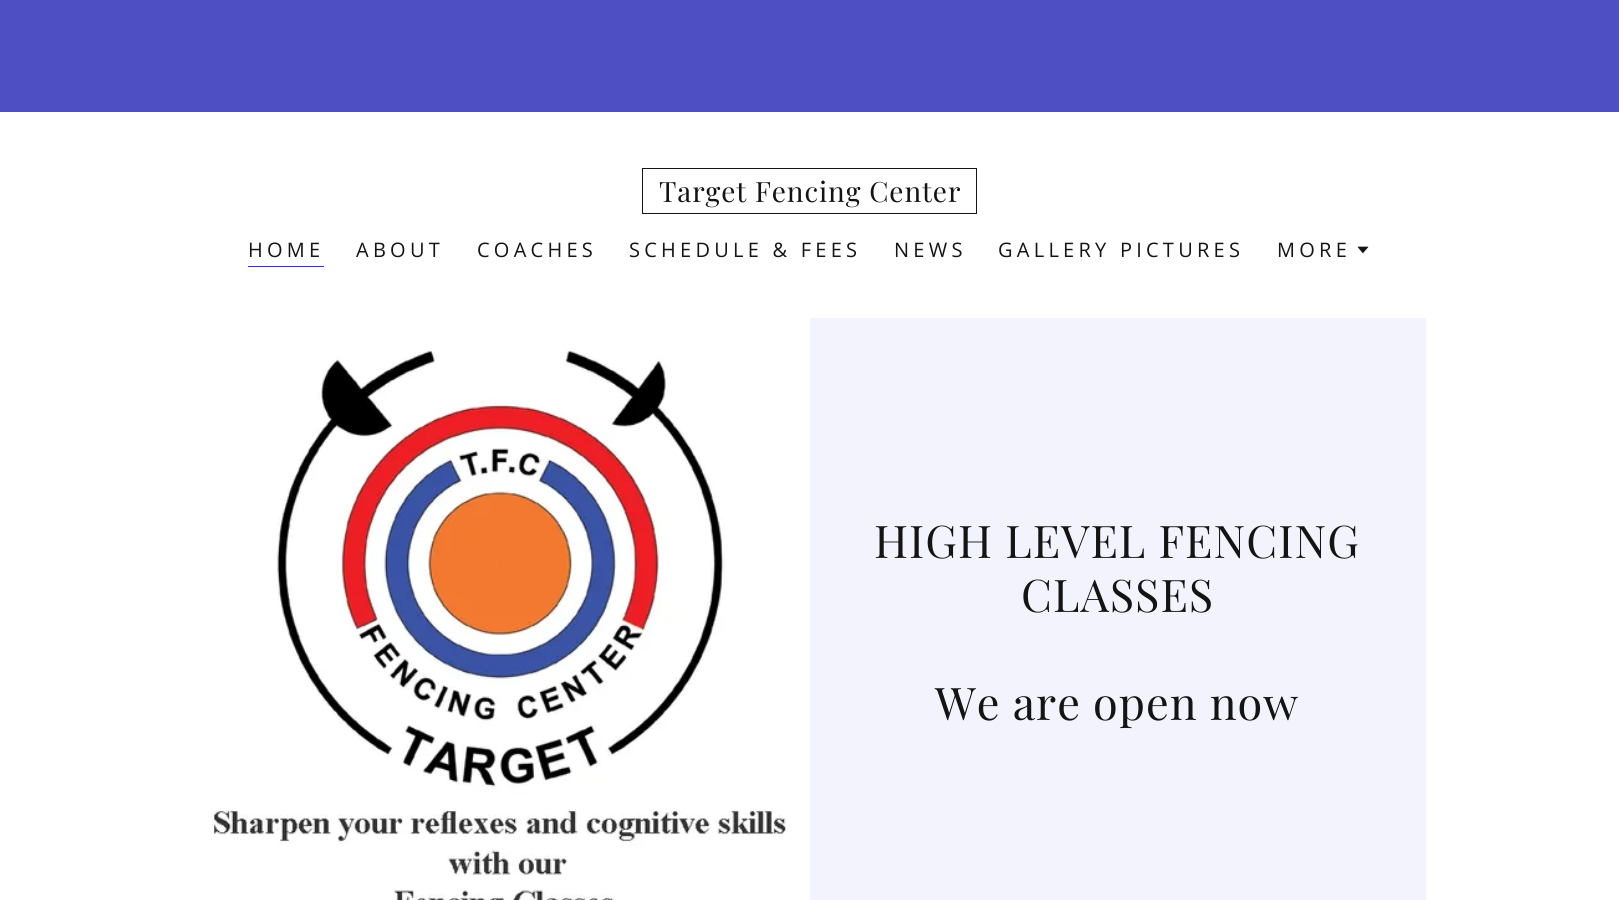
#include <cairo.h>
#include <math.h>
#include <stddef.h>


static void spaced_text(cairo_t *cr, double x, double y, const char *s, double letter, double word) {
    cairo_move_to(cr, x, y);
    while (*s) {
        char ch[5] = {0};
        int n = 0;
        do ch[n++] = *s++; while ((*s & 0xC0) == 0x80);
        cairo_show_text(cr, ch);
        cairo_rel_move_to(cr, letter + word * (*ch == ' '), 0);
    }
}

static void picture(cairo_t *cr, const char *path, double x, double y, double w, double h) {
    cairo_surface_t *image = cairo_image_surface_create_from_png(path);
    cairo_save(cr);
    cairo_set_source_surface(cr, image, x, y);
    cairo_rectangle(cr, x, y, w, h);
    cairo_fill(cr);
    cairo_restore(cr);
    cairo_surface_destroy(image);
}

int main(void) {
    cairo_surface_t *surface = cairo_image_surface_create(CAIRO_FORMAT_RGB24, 1619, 900);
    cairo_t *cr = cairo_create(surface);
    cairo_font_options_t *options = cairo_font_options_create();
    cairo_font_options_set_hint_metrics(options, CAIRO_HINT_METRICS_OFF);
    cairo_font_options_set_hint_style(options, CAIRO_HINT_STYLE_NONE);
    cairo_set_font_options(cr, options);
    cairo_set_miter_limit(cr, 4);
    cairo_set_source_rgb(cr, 1, 1, 1);
    cairo_paint(cr);
    cairo_set_source_rgb(cr, 0.31, 0.31, 0.769);
    cairo_rectangle(cr, 0, 0, 1619, 112);
    cairo_fill(cr);
    cairo_rectangle(cr, 642.5, 168.5, 334, 45);
    cairo_set_source_rgb(cr, 0.082, 0.082, 0.082);
    cairo_set_line_width(cr, 1);
    cairo_stroke(cr);
    cairo_select_font_face(cr, "Playfair Display", CAIRO_FONT_SLANT_NORMAL, CAIRO_FONT_WEIGHT_NORMAL);
    cairo_set_font_size(cr, 28);
    spaced_text(cr, 659, 202, "Target Fencing Center", 0.9, 0);
    cairo_set_source_rgb(cr, 0.184, 0.184, 0.949);
    cairo_rectangle(cr, 248, 266, 76, 1);
    cairo_fill(cr);
    cairo_select_font_face(cr, "Open Sans", CAIRO_FONT_SLANT_NORMAL, CAIRO_FONT_WEIGHT_NORMAL);
    cairo_set_font_size(cr, 20);
    cairo_set_source_rgb(cr, 0.082, 0.082, 0.082);
    spaced_text(cr, 248, 257, "HOME", 4.25, 0);
    spaced_text(cr, 356, 257, "ABOUT", 4.25, 0);
    spaced_text(cr, 477, 257, "COACHES", 4.25, 0);
    spaced_text(cr, 629, 257, "SCHEDULE & FEES", 4.25, 0);
    spaced_text(cr, 894, 257, "NEWS", 4.25, 0);
    spaced_text(cr, 998, 257, "GALLERY PICTURES", 4.25, 0);
    spaced_text(cr, 1277, 257, "MORE", 4.25, 0);
    picture(cr, "img1.png", 1357, 246, 12, 8);
    picture(cr, "img2.png", 213, 348, 573, 552);
    cairo_set_source_rgb(cr, 0.953, 0.953, 0.996);
    cairo_rectangle(cr, 810, 318, 616, 582);
    cairo_fill(cr);
    cairo_select_font_face(cr, "Playfair Display", CAIRO_FONT_SLANT_NORMAL, CAIRO_FONT_WEIGHT_NORMAL);
    cairo_set_font_size(cr, 45);
    cairo_set_source_rgb(cr, 0.082, 0.082, 0.082);
    spaced_text(cr, 874, 558, "HIGH LEVEL FENCING", 1, 0);
    spaced_text(cr, 1021, 612, "CLASSES", 1, 0);
    spaced_text(cr, 935, 720, "We are open now", 1, 0);
    cairo_surface_write_to_png(surface, "page.png");
    cairo_font_options_destroy(options);
    cairo_destroy(cr);
    cairo_surface_destroy(surface);
    return 0;
}
